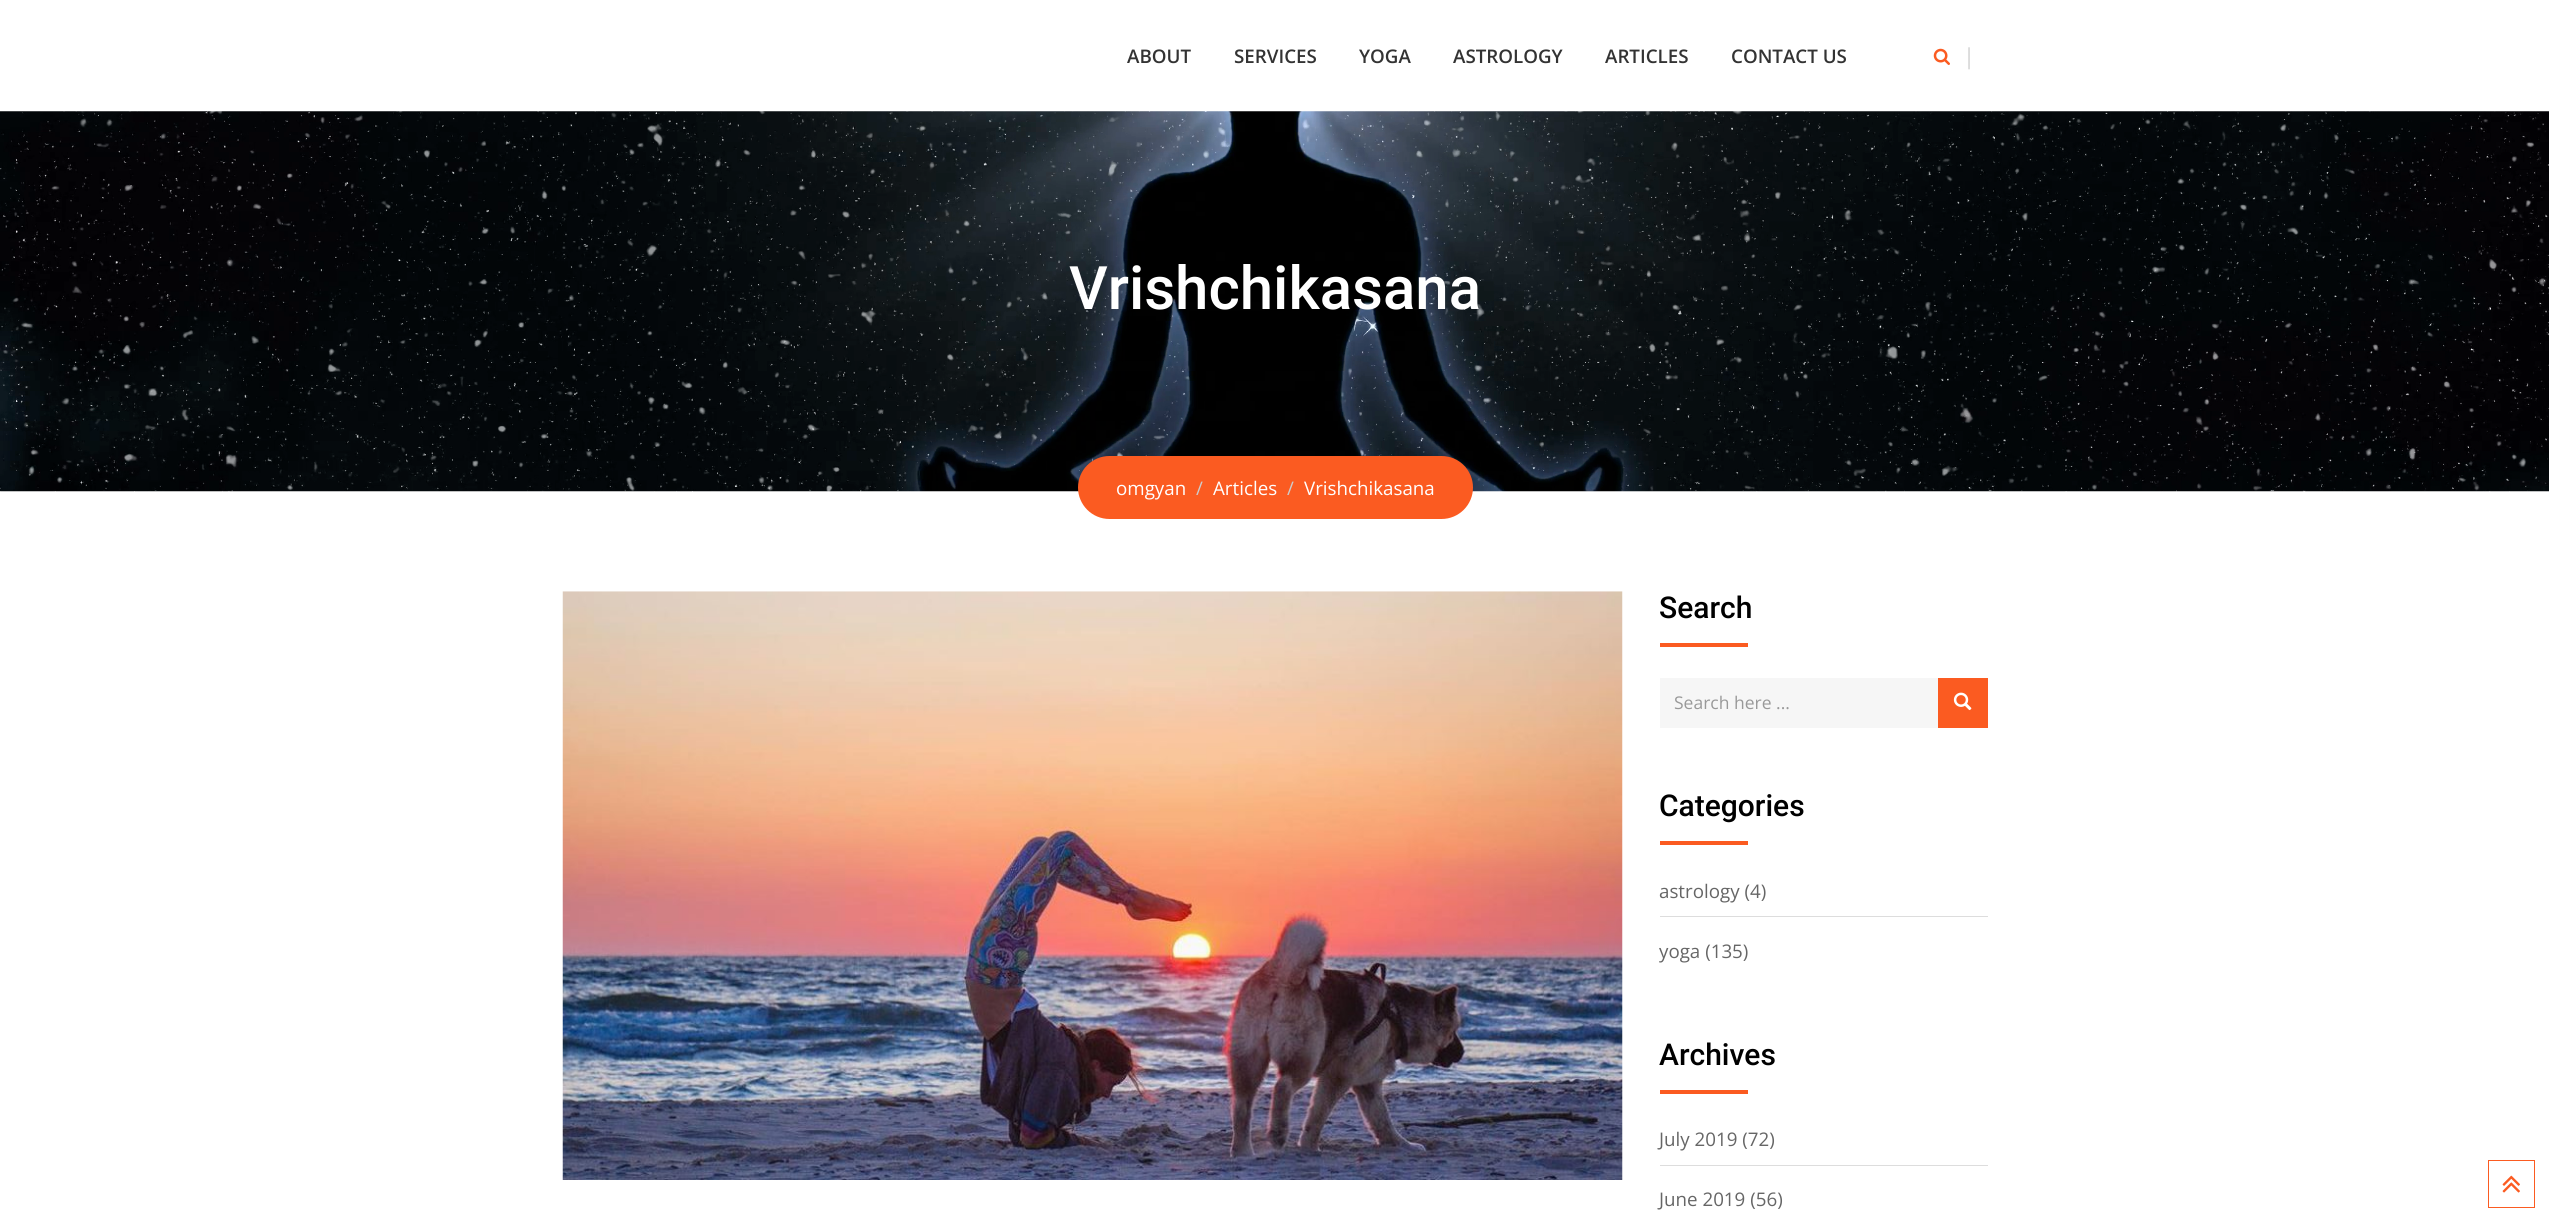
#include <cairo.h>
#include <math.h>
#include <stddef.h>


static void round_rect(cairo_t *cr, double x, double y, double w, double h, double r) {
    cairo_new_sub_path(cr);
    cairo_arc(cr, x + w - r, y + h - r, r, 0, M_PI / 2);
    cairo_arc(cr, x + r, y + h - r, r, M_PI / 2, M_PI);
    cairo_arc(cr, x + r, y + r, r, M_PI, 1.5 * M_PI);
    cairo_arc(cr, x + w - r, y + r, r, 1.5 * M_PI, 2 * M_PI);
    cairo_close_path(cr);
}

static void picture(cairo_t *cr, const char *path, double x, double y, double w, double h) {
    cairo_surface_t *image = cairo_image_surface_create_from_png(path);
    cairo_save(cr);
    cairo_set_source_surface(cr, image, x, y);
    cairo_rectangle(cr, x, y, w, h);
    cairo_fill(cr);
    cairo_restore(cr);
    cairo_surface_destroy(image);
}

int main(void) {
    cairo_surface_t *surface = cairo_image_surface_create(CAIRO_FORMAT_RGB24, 2549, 1215);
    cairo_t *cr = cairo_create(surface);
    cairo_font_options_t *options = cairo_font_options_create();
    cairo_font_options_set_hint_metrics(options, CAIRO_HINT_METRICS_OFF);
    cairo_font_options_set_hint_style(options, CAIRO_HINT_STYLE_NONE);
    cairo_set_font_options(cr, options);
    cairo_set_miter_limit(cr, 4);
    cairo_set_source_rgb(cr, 1, 1, 1);
    cairo_paint(cr);
    cairo_select_font_face(cr, "Open Sans SemiBold", CAIRO_FONT_SLANT_NORMAL, CAIRO_FONT_WEIGHT_NORMAL);
    cairo_set_font_size(cr, 18.75);
    cairo_set_source_rgb(cr, 0.2, 0.2, 0.2);
    cairo_move_to(cr, 1127, 63);
    cairo_show_text(cr, "ABOUT");
    cairo_move_to(cr, 1234, 63);
    cairo_show_text(cr, "SERVICES");
    cairo_move_to(cr, 1359, 63);
    cairo_show_text(cr, "YOGA");
    cairo_move_to(cr, 1453, 63);
    cairo_show_text(cr, "ASTROLOGY");
    cairo_move_to(cr, 1605, 63);
    cairo_show_text(cr, "ARTICLES");
    cairo_move_to(cr, 1731, 63);
    cairo_show_text(cr, "CONTACT US");
    picture(cr, "img1.png", 1933, 48, 17, 17);
    cairo_select_font_face(cr, "Open Sans", CAIRO_FONT_SLANT_NORMAL, CAIRO_FONT_WEIGHT_NORMAL);
    cairo_set_font_size(cr, 22);
    cairo_set_source_rgb(cr, 0.827, 0.827, 0.827);
    cairo_move_to(cr, 1963, 64);
    cairo_show_text(cr, "|");
    picture(cr, "img2.png", 0, 111, 2549, 381);
    cairo_select_font_face(cr, "Roboto Medium", CAIRO_FONT_SLANT_NORMAL, CAIRO_FONT_WEIGHT_NORMAL);
    cairo_set_font_size(cr, 60);
    cairo_set_source_rgb(cr, 1, 1, 1);
    cairo_move_to(cr, 1069, 309);
    cairo_show_text(cr, "Vrishchikasana");
    cairo_set_source_rgb(cr, 0.984, 0.357, 0.129);
    round_rect(cr, 1078, 456, 395, 63, 31.5);
    cairo_fill(cr);
    cairo_select_font_face(cr, "Open Sans", CAIRO_FONT_SLANT_NORMAL, CAIRO_FONT_WEIGHT_NORMAL);
    cairo_set_font_size(cr, 18.75);
    cairo_set_source_rgb(cr, 1, 1, 1);
    cairo_move_to(cr, 1116, 495);
    cairo_show_text(cr, "omgyan");
    cairo_set_source_rgb(cr, 0.8, 0.8, 0.8);
    cairo_move_to(cr, 1196, 495);
    cairo_show_text(cr, "/");
    cairo_set_source_rgb(cr, 1, 1, 1);
    cairo_move_to(cr, 1213, 495);
    cairo_show_text(cr, "Articles");
    cairo_set_source_rgb(cr, 0.8, 0.8, 0.8);
    cairo_move_to(cr, 1287, 495);
    cairo_show_text(cr, "/");
    cairo_set_source_rgb(cr, 1, 1, 1);
    cairo_move_to(cr, 1304, 495);
    cairo_show_text(cr, "Vrishchikasana");
    picture(cr, "img3.png", 562, 591, 1061, 589);
    cairo_select_font_face(cr, "Roboto Medium", CAIRO_FONT_SLANT_NORMAL, CAIRO_FONT_WEIGHT_NORMAL);
    cairo_set_font_size(cr, 30);
    cairo_set_source_rgb(cr, 0, 0, 0);
    cairo_move_to(cr, 1659, 618);
    cairo_show_text(cr, "Search");
    cairo_set_source_rgb(cr, 0.984, 0.357, 0.129);
    cairo_rectangle(cr, 1660, 643, 88, 4);
    cairo_fill(cr);
    cairo_set_source_rgb(cr, 0.961, 0.961, 0.961);
    cairo_rectangle(cr, 1660, 678, 278, 50);
    cairo_fill(cr);
    cairo_select_font_face(cr, "Open Sans", CAIRO_FONT_SLANT_NORMAL, CAIRO_FONT_WEIGHT_NORMAL);
    cairo_set_font_size(cr, 17.5);
    cairo_set_source_rgb(cr, 0.6, 0.6, 0.6);
    cairo_move_to(cr, 1674, 709);
    cairo_show_text(cr, "Search here ...");
    cairo_set_source_rgb(cr, 0.984, 0.357, 0.129);
    cairo_rectangle(cr, 1938, 678, 50, 50);
    cairo_fill(cr);
    picture(cr, "img4.png", 1953, 692, 19, 19);
    cairo_select_font_face(cr, "Roboto Medium", CAIRO_FONT_SLANT_NORMAL, CAIRO_FONT_WEIGHT_NORMAL);
    cairo_set_font_size(cr, 30);
    cairo_set_source_rgb(cr, 0, 0, 0);
    cairo_move_to(cr, 1659, 816);
    cairo_show_text(cr, "Categories");
    cairo_set_source_rgb(cr, 0.984, 0.357, 0.129);
    cairo_rectangle(cr, 1660, 841, 88, 4);
    cairo_fill(cr);
    cairo_set_source_rgb(cr, 0.867, 0.867, 0.867);
    cairo_rectangle(cr, 1660, 916, 328, 1);
    cairo_fill(cr);
    cairo_select_font_face(cr, "Open Sans", CAIRO_FONT_SLANT_NORMAL, CAIRO_FONT_WEIGHT_NORMAL);
    cairo_set_font_size(cr, 18.75);
    cairo_set_source_rgb(cr, 0.4, 0.4, 0.4);
    cairo_move_to(cr, 1659, 898);
    cairo_show_text(cr, "astrology (4)");
    cairo_move_to(cr, 1659, 958);
    cairo_show_text(cr, "yoga (135)");
    cairo_select_font_face(cr, "Roboto Medium", CAIRO_FONT_SLANT_NORMAL, CAIRO_FONT_WEIGHT_NORMAL);
    cairo_set_font_size(cr, 30);
    cairo_set_source_rgb(cr, 0, 0, 0);
    cairo_move_to(cr, 1659, 1065);
    cairo_show_text(cr, "Archives");
    cairo_set_source_rgb(cr, 0.984, 0.357, 0.129);
    cairo_rectangle(cr, 1660, 1090, 88, 4);
    cairo_fill(cr);
    cairo_set_source_rgb(cr, 0.867, 0.867, 0.867);
    cairo_rectangle(cr, 1660, 1165, 328, 1);
    cairo_fill(cr);
    cairo_select_font_face(cr, "Open Sans", CAIRO_FONT_SLANT_NORMAL, CAIRO_FONT_WEIGHT_NORMAL);
    cairo_set_font_size(cr, 18.75);
    cairo_set_source_rgb(cr, 0.4, 0.4, 0.4);
    cairo_move_to(cr, 1659, 1146);
    cairo_show_text(cr, "July 2019 (72)");
    cairo_move_to(cr, 1659, 1206);
    cairo_show_text(cr, "June 2019 (56)");
    cairo_rectangle(cr, 2488.5, 1160.5, 46, 47);
    cairo_set_source_rgb(cr, 0.984, 0.357, 0.129);
    cairo_set_line_width(cr, 1);
    cairo_stroke(cr);
    picture(cr, "img5.png", 2502, 1175, 18, 18);
    cairo_surface_write_to_png(surface, "page.png");
    cairo_font_options_destroy(options);
    cairo_destroy(cr);
    cairo_surface_destroy(surface);
    return 0;
}
